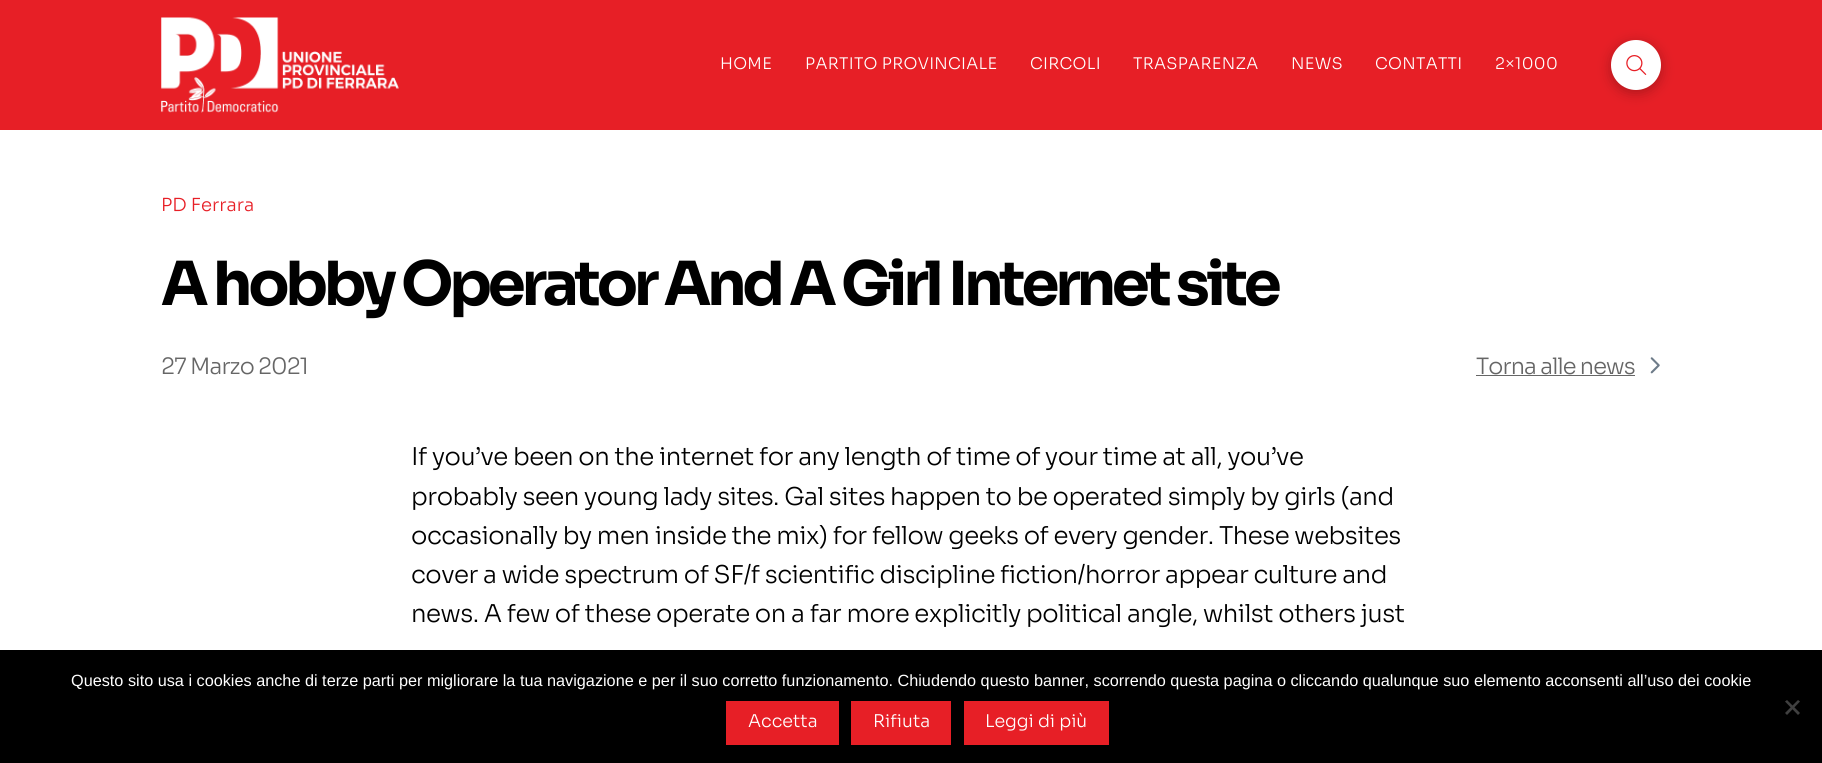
#include <cairo.h>
#include <math.h>
#include <stddef.h>


static void spaced_text(cairo_t *cr, double x, double y, const char *s, double letter, double word) {
    cairo_move_to(cr, x, y);
    while (*s) {
        char ch[5] = {0};
        int n = 0;
        do ch[n++] = *s++; while ((*s & 0xC0) == 0x80);
        cairo_show_text(cr, ch);
        cairo_rel_move_to(cr, letter + word * (*ch == ' '), 0);
    }
}

static void round_rect(cairo_t *cr, double x, double y, double w, double h, double r) {
    cairo_new_sub_path(cr);
    cairo_arc(cr, x + w - r, y + h - r, r, 0, M_PI / 2);
    cairo_arc(cr, x + r, y + h - r, r, M_PI / 2, M_PI);
    cairo_arc(cr, x + r, y + r, r, M_PI, 1.5 * M_PI);
    cairo_arc(cr, x + w - r, y + r, r, 1.5 * M_PI, 2 * M_PI);
    cairo_close_path(cr);
}

static void shadow(cairo_t *cr, double x, double y, double w, double h, double r, double blur, double alpha) {
    cairo_push_group_with_content(cr, CAIRO_CONTENT_ALPHA);
    cairo_set_operator(cr, CAIRO_OPERATOR_SOURCE);
    for (int i = 15; i >= -15 && fmin(w, h) + blur * i / 3 > 0; i -= 2) {
        double e = blur * i / 6;
        cairo_set_source_rgba(cr, 0, 0, 0, alpha * erfc((i - 1) / 8.5) / 2);
        round_rect(cr, x - e, y - e, w + 2 * e, h + 2 * e, fmax(0, fmin(r + e + blur * .6, fmin(w, h) / 2 + e)));
        cairo_fill(cr);
    }
    cairo_pattern_t *soft = cairo_pop_group(cr);
    cairo_mask(cr, soft);
    cairo_pattern_destroy(soft);
}

static void picture(cairo_t *cr, const char *path, double x, double y, double w, double h) {
    cairo_surface_t *image = cairo_image_surface_create_from_png(path);
    cairo_save(cr);
    cairo_set_source_surface(cr, image, x, y);
    cairo_rectangle(cr, x, y, w, h);
    cairo_fill(cr);
    cairo_restore(cr);
    cairo_surface_destroy(image);
}

int main(void) {
    cairo_surface_t *surface = cairo_image_surface_create(CAIRO_FORMAT_RGB24, 1822, 763);
    cairo_t *cr = cairo_create(surface);
    cairo_font_options_t *options = cairo_font_options_create();
    cairo_font_options_set_hint_metrics(options, CAIRO_HINT_METRICS_OFF);
    cairo_font_options_set_hint_style(options, CAIRO_HINT_STYLE_NONE);
    cairo_set_font_options(cr, options);
    cairo_set_miter_limit(cr, 4);
    cairo_set_source_rgb(cr, 1, 1, 1);
    cairo_paint(cr);
    cairo_set_source_rgb(cr, 0.906, 0.122, 0.149);
    cairo_rectangle(cr, 0, 0, 1822, 130);
    cairo_fill(cr);
    picture(cr, "img1.png", 161, 17, 238, 96);
    cairo_select_font_face(cr, "Sora Light", CAIRO_FONT_SLANT_NORMAL, CAIRO_FONT_WEIGHT_NORMAL);
    cairo_set_font_size(cr, 16);
    cairo_set_source_rgb(cr, 1, 1, 1);
    spaced_text(cr, 720, 69, "HOME", 0.3, 0);
    spaced_text(cr, 805, 69, "PARTITO PROVINCIALE", 0.3, 0);
    spaced_text(cr, 1030, 69, "CIRCOLI", 0.3, 0);
    spaced_text(cr, 1133, 69, "TRASPARENZA", 0.3, 0);
    spaced_text(cr, 1291, 69, "NEWS", 0.3, 0);
    spaced_text(cr, 1375, 69, "CONTATTI", 0.3, 0);
    spaced_text(cr, 1495, 69, "2×1000", 0.3, 0);
    cairo_set_source_rgb(cr, 0, 0, 0);
    shadow(cr, 1611, 43, 50, 50, 25, 6.5, 0.25);
    cairo_set_source_rgb(cr, 1, 1, 1);
    cairo_arc(cr, 1636, 65, 25, 0, 2 * M_PI);
    cairo_fill(cr);
    picture(cr, "img2.png", 1626, 55, 21, 20);
    cairo_set_font_size(cr, 18);
    cairo_set_source_rgb(cr, 0.906, 0.122, 0.149);
    cairo_move_to(cr, 161, 211);
    cairo_show_text(cr, "PD Ferrara");
    cairo_select_font_face(cr, "Sora", CAIRO_FONT_SLANT_NORMAL, CAIRO_FONT_WEIGHT_BOLD);
    cairo_set_font_size(cr, 60.75);
    cairo_set_source_rgb(cr, 0, 0, 0);
    spaced_text(cr, 161, 305, "A hobby Operator And A Girl Internet site", -4.25, 0);
    cairo_select_font_face(cr, "Sora Light", CAIRO_FONT_SLANT_NORMAL, CAIRO_FONT_WEIGHT_NORMAL);
    cairo_set_font_size(cr, 22.5);
    cairo_set_source_rgb(cr, 0.4, 0.4, 0.4);
    spaced_text(cr, 161, 374, "27 Marzo 2021", -0.9, 0);
    spaced_text(cr, 1476, 374, "Torna alle news", -0.9, 0);
    cairo_rectangle(cr, 1476, 375, 159, 1);
    cairo_fill(cr);
    picture(cr, "img3.png", 1650, 357, 10, 17);
    cairo_set_font_size(cr, 24.5);
    cairo_set_source_rgb(cr, 0, 0, 0);
    spaced_text(cr, 411, 465, "If you’ve been on the internet for any length of time of your time at all, you’ve", -0.5, 0);
    spaced_text(cr, 411, 505, "probably seen young lady sites. Gal sites happen to be operated simply by girls (and", -0.5, 0);
    spaced_text(cr, 411, 544, "occasionally by men inside the mix) for fellow geeks of every gender. These websites", -0.5, 0);
    spaced_text(cr, 411, 583, "cover a wide spectrum of SF/f scientific discipline fiction/horror appear culture and", -0.5, 0);
    spaced_text(cr, 411, 622, "news. A few of these operate on a far more explicitly political angle, whilst others just", -0.5, 0);
    cairo_rectangle(cr, 0, 650, 1822, 113);
    cairo_fill(cr);
    cairo_select_font_face(cr, "Liberation Sans", CAIRO_FONT_SLANT_NORMAL, CAIRO_FONT_WEIGHT_NORMAL);
    cairo_set_font_size(cr, 16.25);
    cairo_set_source_rgb(cr, 1, 1, 1);
    cairo_move_to(cr, 71, 686);
    cairo_show_text(cr, "Questo sito usa i cookies anche di terze parti per migliorare la tua navigazione e per il suo corretto funzionamento. Chiudendo questo banner, scorrendo questa pagina o cliccando qualunque suo elemento acconsenti all’uso dei cookie");
    cairo_set_source_rgb(cr, 0.251, 0.251, 0.251);
    cairo_new_path(cr);
    cairo_move_to(cr, 1798, 700);
    cairo_line_to(cr, 1800, 701.5);
    cairo_line_to(cr, 1787, 715);
    cairo_line_to(cr, 1785, 713);
    cairo_close_path(cr);
    cairo_fill(cr);
    cairo_new_path(cr);
    cairo_move_to(cr, 1785, 701.5);
    cairo_line_to(cr, 1787, 700);
    cairo_line_to(cr, 1800, 713);
    cairo_line_to(cr, 1798, 715);
    cairo_close_path(cr);
    cairo_fill(cr);
    cairo_set_source_rgb(cr, 0.906, 0.122, 0.149);
    cairo_rectangle(cr, 726, 701, 113, 44);
    cairo_fill(cr);
    cairo_select_font_face(cr, "Sora Light", CAIRO_FONT_SLANT_NORMAL, CAIRO_FONT_WEIGHT_NORMAL);
    cairo_set_font_size(cr, 17.5);
    cairo_set_source_rgb(cr, 1, 1, 1);
    cairo_move_to(cr, 748, 727);
    cairo_show_text(cr, "Accetta");
    cairo_set_source_rgb(cr, 0.906, 0.122, 0.149);
    cairo_rectangle(cr, 851, 701, 100, 44);
    cairo_fill(cr);
    cairo_set_source_rgb(cr, 1, 1, 1);
    cairo_move_to(cr, 873, 727);
    cairo_show_text(cr, "Rifiuta");
    cairo_set_source_rgb(cr, 0.906, 0.122, 0.149);
    cairo_rectangle(cr, 964, 701, 145, 44);
    cairo_fill(cr);
    cairo_set_source_rgb(cr, 1, 1, 1);
    cairo_move_to(cr, 985, 727);
    cairo_show_text(cr, "Leggi di più");
    cairo_surface_write_to_png(surface, "page.png");
    cairo_font_options_destroy(options);
    cairo_destroy(cr);
    cairo_surface_destroy(surface);
    return 0;
}
